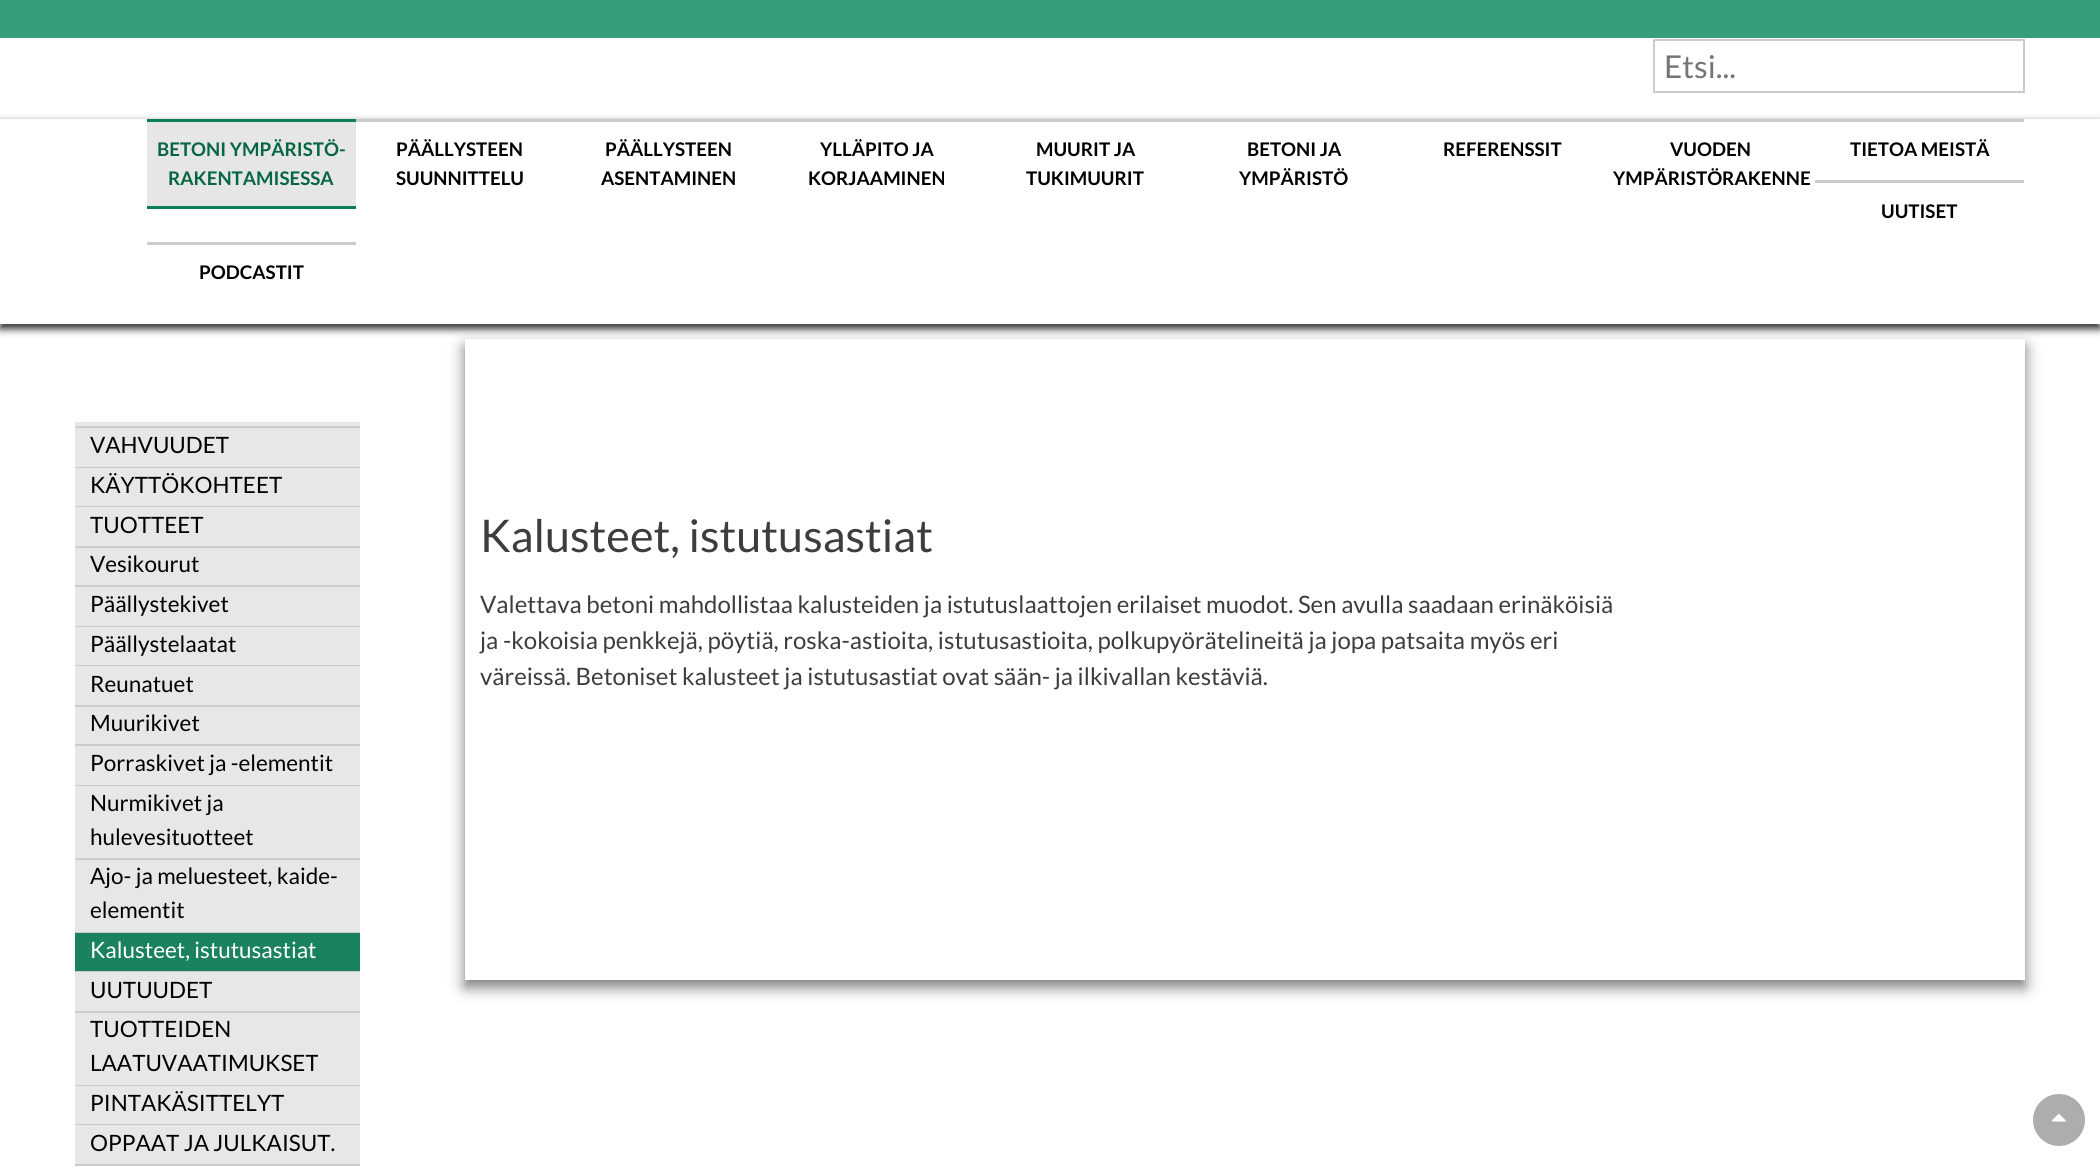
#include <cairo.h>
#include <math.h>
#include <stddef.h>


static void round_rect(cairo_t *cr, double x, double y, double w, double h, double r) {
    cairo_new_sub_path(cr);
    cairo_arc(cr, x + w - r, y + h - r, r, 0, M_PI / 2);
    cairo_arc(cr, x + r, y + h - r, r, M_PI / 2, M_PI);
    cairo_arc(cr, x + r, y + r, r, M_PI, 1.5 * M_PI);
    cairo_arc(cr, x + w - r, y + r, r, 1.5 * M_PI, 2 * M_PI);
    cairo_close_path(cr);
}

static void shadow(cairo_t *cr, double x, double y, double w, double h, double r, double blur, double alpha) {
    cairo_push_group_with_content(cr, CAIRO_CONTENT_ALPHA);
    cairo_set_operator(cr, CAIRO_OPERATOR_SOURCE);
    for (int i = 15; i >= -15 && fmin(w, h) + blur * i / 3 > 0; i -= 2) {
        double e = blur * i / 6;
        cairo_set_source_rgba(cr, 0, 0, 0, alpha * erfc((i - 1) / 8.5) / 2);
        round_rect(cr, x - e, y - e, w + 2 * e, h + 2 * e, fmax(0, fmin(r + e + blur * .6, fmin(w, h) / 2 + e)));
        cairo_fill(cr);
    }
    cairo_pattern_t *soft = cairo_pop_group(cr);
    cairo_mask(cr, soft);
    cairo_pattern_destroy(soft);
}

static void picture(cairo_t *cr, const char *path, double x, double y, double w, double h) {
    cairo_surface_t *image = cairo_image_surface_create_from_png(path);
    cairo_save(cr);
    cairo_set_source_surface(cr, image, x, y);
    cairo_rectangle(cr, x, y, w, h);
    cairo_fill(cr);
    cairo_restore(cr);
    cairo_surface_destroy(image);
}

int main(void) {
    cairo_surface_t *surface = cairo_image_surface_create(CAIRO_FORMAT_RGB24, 2100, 1176);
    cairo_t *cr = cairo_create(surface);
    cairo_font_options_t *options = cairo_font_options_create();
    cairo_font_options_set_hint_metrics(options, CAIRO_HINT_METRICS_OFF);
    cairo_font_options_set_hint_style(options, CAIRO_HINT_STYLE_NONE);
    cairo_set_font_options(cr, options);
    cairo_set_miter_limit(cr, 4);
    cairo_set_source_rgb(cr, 1, 1, 1);
    cairo_paint(cr);
    cairo_set_source_rgb(cr, 0.22, 0.62, 0.475);
    cairo_rectangle(cr, 0, 0, 2100, 38);
    cairo_fill(cr);
    cairo_rectangle(cr, 1654, 40, 370, 52);
    cairo_set_source_rgb(cr, 0.8, 0.8, 0.8);
    cairo_stroke(cr);
    cairo_select_font_face(cr, "Lato", CAIRO_FONT_SLANT_NORMAL, CAIRO_FONT_WEIGHT_NORMAL);
    cairo_set_font_size(cr, 31.5);
    cairo_set_source_rgb(cr, 0.459, 0.459, 0.459);
    cairo_move_to(cr, 1664, 78);
    cairo_show_text(cr, "Etsi...");
    cairo_save(cr);
    cairo_set_fill_rule(cr, CAIRO_FILL_RULE_EVEN_ODD);
    cairo_new_path(cr);
    cairo_move_to(cr, 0, 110);
    cairo_line_to(cr, 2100, 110);
    cairo_line_to(cr, 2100, 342);
    cairo_line_to(cr, 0, 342);
    cairo_close_path(cr);
    cairo_move_to(cr, 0, 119);
    cairo_line_to(cr, 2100, 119);
    cairo_line_to(cr, 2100, 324);
    cairo_line_to(cr, 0, 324);
    cairo_close_path(cr);
    cairo_clip(cr);
    cairo_set_source_rgb(cr, 0.188, 0.188, 0.188);
    shadow(cr, 0, 123, 2100, 206, 0, 4, 1);
    cairo_restore(cr);
    cairo_set_source_rgb(cr, 0.902, 0.902, 0.902);
    cairo_rectangle(cr, 147, 122, 209, 84);
    cairo_fill(cr);
    cairo_set_source_rgb(cr, 0.043, 0.502, 0.337);
    cairo_rectangle(cr, 147, 119, 209, 3);
    cairo_fill(cr);
    cairo_rectangle(cr, 147, 206, 209, 3);
    cairo_fill(cr);
    cairo_select_font_face(cr, "Lato", CAIRO_FONT_SLANT_NORMAL, CAIRO_FONT_WEIGHT_BOLD);
    cairo_set_font_size(cr, 18.75);
    cairo_set_source_rgb(cr, 0.024, 0.4, 0.267);
    cairo_move_to(cr, 157, 156);
    cairo_show_text(cr, "BETONI YMPÄRISTÖ-");
    cairo_move_to(cr, 168, 185);
    cairo_show_text(cr, "RAKENTAMISESSA");
    cairo_set_source_rgb(cr, 0.8, 0.8, 0.8);
    cairo_rectangle(cr, 356, 119, 1668, 3);
    cairo_fill(cr);
    cairo_set_source_rgb(cr, 0, 0, 0);
    cairo_move_to(cr, 396, 156);
    cairo_show_text(cr, "PÄÄLLYSTEEN");
    cairo_move_to(cr, 396, 185);
    cairo_show_text(cr, "SUUNNITTELU");
    cairo_move_to(cr, 605, 156);
    cairo_show_text(cr, "PÄÄLLYSTEEN");
    cairo_move_to(cr, 601, 185);
    cairo_show_text(cr, "ASENTAMINEN");
    cairo_move_to(cr, 820, 156);
    cairo_show_text(cr, "YLLÄPITO JA");
    cairo_move_to(cr, 808, 185);
    cairo_show_text(cr, "KORJAAMINEN");
    cairo_move_to(cr, 1036, 156);
    cairo_show_text(cr, "MUURIT JA");
    cairo_move_to(cr, 1026, 185);
    cairo_show_text(cr, "TUKIMUURIT");
    cairo_move_to(cr, 1247, 156);
    cairo_show_text(cr, "BETONI JA");
    cairo_move_to(cr, 1239, 185);
    cairo_show_text(cr, "YMPÄRISTÖ");
    cairo_move_to(cr, 1443, 156);
    cairo_show_text(cr, "REFERENSSIT");
    cairo_move_to(cr, 1670, 156);
    cairo_show_text(cr, "VUODEN");
    cairo_move_to(cr, 1613, 185);
    cairo_show_text(cr, "YMPÄRISTÖRAKENNE");
    cairo_move_to(cr, 1850, 156);
    cairo_show_text(cr, "TIETOA MEISTÄ");
    cairo_set_source_rgb(cr, 0.8, 0.8, 0.8);
    cairo_rectangle(cr, 1815, 180, 209, 3);
    cairo_fill(cr);
    cairo_set_source_rgb(cr, 0, 0, 0);
    cairo_move_to(cr, 1881, 218);
    cairo_show_text(cr, "UUTISET");
    cairo_set_source_rgb(cr, 0.8, 0.8, 0.8);
    cairo_rectangle(cr, 147, 242, 209, 3);
    cairo_fill(cr);
    cairo_set_source_rgb(cr, 0, 0, 0);
    cairo_move_to(cr, 199, 279);
    cairo_show_text(cr, "PODCASTIT");
    cairo_set_source_rgb(cr, 0.906, 0.906, 0.906);
    cairo_rectangle(cr, 75, 422, 285, 4);
    cairo_fill(cr);
    cairo_set_source_rgb(cr, 0.8, 0.8, 0.8);
    cairo_rectangle(cr, 75, 426, 285, 2);
    cairo_fill(cr);
    cairo_set_source_rgb(cr, 0.906, 0.906, 0.906);
    cairo_rectangle(cr, 75, 428, 285, 39);
    cairo_fill(cr);
    cairo_set_source_rgb(cr, 0.8, 0.8, 0.8);
    cairo_rectangle(cr, 75, 467, 285, 1);
    cairo_fill(cr);
    cairo_select_font_face(cr, "Lato", CAIRO_FONT_SLANT_NORMAL, CAIRO_FONT_WEIGHT_NORMAL);
    cairo_set_font_size(cr, 22.5);
    cairo_set_source_rgb(cr, 0, 0, 0);
    cairo_move_to(cr, 90, 453);
    cairo_show_text(cr, "VAHVUUDET");
    cairo_set_source_rgb(cr, 0.906, 0.906, 0.906);
    cairo_rectangle(cr, 75, 468, 285, 38);
    cairo_fill(cr);
    cairo_set_source_rgb(cr, 0.8, 0.8, 0.8);
    cairo_rectangle(cr, 75, 506, 285, 1);
    cairo_fill(cr);
    cairo_set_source_rgb(cr, 0, 0, 0);
    cairo_move_to(cr, 90, 493);
    cairo_show_text(cr, "KÄYTTÖKOHTEET");
    cairo_set_source_rgb(cr, 0.906, 0.906, 0.906);
    cairo_rectangle(cr, 75, 507, 285, 39);
    cairo_fill(cr);
    cairo_set_source_rgb(cr, 0.8, 0.8, 0.8);
    cairo_rectangle(cr, 75, 546, 285, 2);
    cairo_fill(cr);
    cairo_set_source_rgb(cr, 0, 0, 0);
    cairo_move_to(cr, 90, 533);
    cairo_show_text(cr, "TUOTTEET");
    cairo_set_source_rgb(cr, 0.906, 0.906, 0.906);
    cairo_rectangle(cr, 75, 548, 285, 37);
    cairo_fill(cr);
    cairo_set_source_rgb(cr, 0.8, 0.8, 0.8);
    cairo_rectangle(cr, 75, 585, 285, 2);
    cairo_fill(cr);
    cairo_set_source_rgb(cr, 0, 0, 0);
    cairo_move_to(cr, 90, 572);
    cairo_show_text(cr, "Vesikourut");
    cairo_set_source_rgb(cr, 0.906, 0.906, 0.906);
    cairo_rectangle(cr, 75, 587, 285, 39);
    cairo_fill(cr);
    cairo_set_source_rgb(cr, 0.8, 0.8, 0.8);
    cairo_rectangle(cr, 75, 626, 285, 1);
    cairo_fill(cr);
    cairo_set_source_rgb(cr, 0, 0, 0);
    cairo_move_to(cr, 90, 612);
    cairo_show_text(cr, "Päällystekivet");
    cairo_set_source_rgb(cr, 0.906, 0.906, 0.906);
    cairo_rectangle(cr, 75, 627, 285, 38);
    cairo_fill(cr);
    cairo_set_source_rgb(cr, 0.8, 0.8, 0.8);
    cairo_rectangle(cr, 75, 665, 285, 1);
    cairo_fill(cr);
    cairo_set_source_rgb(cr, 0, 0, 0);
    cairo_move_to(cr, 90, 652);
    cairo_show_text(cr, "Päällystelaatat");
    cairo_set_source_rgb(cr, 0.906, 0.906, 0.906);
    cairo_rectangle(cr, 75, 666, 285, 39);
    cairo_fill(cr);
    cairo_set_source_rgb(cr, 0.8, 0.8, 0.8);
    cairo_rectangle(cr, 75, 705, 285, 2);
    cairo_fill(cr);
    cairo_set_source_rgb(cr, 0, 0, 0);
    cairo_move_to(cr, 90, 692);
    cairo_show_text(cr, "Reunatuet");
    cairo_set_source_rgb(cr, 0.906, 0.906, 0.906);
    cairo_rectangle(cr, 75, 707, 285, 37);
    cairo_fill(cr);
    cairo_set_source_rgb(cr, 0.8, 0.8, 0.8);
    cairo_rectangle(cr, 75, 744, 285, 2);
    cairo_fill(cr);
    cairo_set_source_rgb(cr, 0, 0, 0);
    cairo_move_to(cr, 90, 731);
    cairo_show_text(cr, "Muurikivet");
    cairo_set_source_rgb(cr, 0.906, 0.906, 0.906);
    cairo_rectangle(cr, 75, 746, 285, 39);
    cairo_fill(cr);
    cairo_set_source_rgb(cr, 0.8, 0.8, 0.8);
    cairo_rectangle(cr, 75, 785, 285, 1);
    cairo_fill(cr);
    cairo_set_source_rgb(cr, 0, 0, 0);
    cairo_move_to(cr, 90, 771);
    cairo_show_text(cr, "Porraskivet ja -elementit");
    cairo_set_source_rgb(cr, 0.906, 0.906, 0.906);
    cairo_rectangle(cr, 75, 786, 285, 72);
    cairo_fill(cr);
    cairo_set_source_rgb(cr, 0.8, 0.8, 0.8);
    cairo_rectangle(cr, 75, 858, 285, 2);
    cairo_fill(cr);
    cairo_set_source_rgb(cr, 0, 0, 0);
    cairo_move_to(cr, 90, 811);
    cairo_show_text(cr, "Nurmikivet ja");
    cairo_move_to(cr, 90, 845);
    cairo_show_text(cr, "hulevesituotteet");
    cairo_set_source_rgb(cr, 0.906, 0.906, 0.906);
    cairo_rectangle(cr, 75, 860, 285, 72);
    cairo_fill(cr);
    cairo_set_source_rgb(cr, 0.8, 0.8, 0.8);
    cairo_rectangle(cr, 75, 932, 285, 1);
    cairo_fill(cr);
    cairo_set_source_rgb(cr, 0, 0, 0);
    cairo_move_to(cr, 90, 884);
    cairo_show_text(cr, "Ajo- ja meluesteet, kaide-");
    cairo_move_to(cr, 90, 918);
    cairo_show_text(cr, "elementit");
    cairo_set_source_rgb(cr, 0.106, 0.51, 0.373);
    cairo_rectangle(cr, 75, 933, 285, 38);
    cairo_fill(cr);
    cairo_set_source_rgb(cr, 0.8, 0.8, 0.8);
    cairo_rectangle(cr, 75, 971, 285, 1);
    cairo_fill(cr);
    cairo_set_source_rgb(cr, 1, 1, 1);
    cairo_move_to(cr, 90, 958);
    cairo_show_text(cr, "Kalusteet, istutusastiat");
    cairo_set_source_rgb(cr, 0.906, 0.906, 0.906);
    cairo_rectangle(cr, 75, 972, 285, 39);
    cairo_fill(cr);
    cairo_set_source_rgb(cr, 0.8, 0.8, 0.8);
    cairo_rectangle(cr, 75, 1011, 285, 2);
    cairo_fill(cr);
    cairo_set_source_rgb(cr, 0, 0, 0);
    cairo_move_to(cr, 90, 998);
    cairo_show_text(cr, "UUTUUDET");
    cairo_set_source_rgb(cr, 0.906, 0.906, 0.906);
    cairo_rectangle(cr, 75, 1013, 285, 72);
    cairo_fill(cr);
    cairo_set_source_rgb(cr, 0.8, 0.8, 0.8);
    cairo_rectangle(cr, 75, 1085, 285, 1);
    cairo_fill(cr);
    cairo_set_source_rgb(cr, 0, 0, 0);
    cairo_move_to(cr, 90, 1037);
    cairo_show_text(cr, "TUOTTEIDEN");
    cairo_move_to(cr, 90, 1071);
    cairo_show_text(cr, "LAATUVAATIMUKSET");
    cairo_set_source_rgb(cr, 0.906, 0.906, 0.906);
    cairo_rectangle(cr, 75, 1086, 285, 38);
    cairo_fill(cr);
    cairo_set_source_rgb(cr, 0.8, 0.8, 0.8);
    cairo_rectangle(cr, 75, 1124, 285, 1);
    cairo_fill(cr);
    cairo_set_source_rgb(cr, 0, 0, 0);
    cairo_move_to(cr, 90, 1111);
    cairo_show_text(cr, "PINTAKÄSITTELYT");
    cairo_set_source_rgb(cr, 0.906, 0.906, 0.906);
    cairo_rectangle(cr, 75, 1125, 285, 39);
    cairo_fill(cr);
    cairo_set_source_rgb(cr, 0.8, 0.8, 0.8);
    cairo_rectangle(cr, 75, 1164, 285, 2);
    cairo_fill(cr);
    cairo_set_source_rgb(cr, 0, 0, 0);
    cairo_move_to(cr, 90, 1151);
    cairo_show_text(cr, "OPPAAT JA JULKAISUT.");
    cairo_save(cr);
    cairo_set_fill_rule(cr, CAIRO_FILL_RULE_EVEN_ODD);
    cairo_new_path(cr);
    cairo_move_to(cr, 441, 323);
    cairo_line_to(cr, 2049, 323);
    cairo_line_to(cr, 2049, 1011);
    cairo_line_to(cr, 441, 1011);
    cairo_close_path(cr);
    cairo_move_to(cr, 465, 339);
    cairo_line_to(cr, 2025, 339);
    cairo_line_to(cr, 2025, 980);
    cairo_line_to(cr, 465, 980);
    cairo_close_path(cr);
    cairo_clip(cr);
    cairo_set_source_rgb(cr, 0.467, 0.467, 0.467);
    shadow(cr, 465, 347, 1560, 640, 0, 7.5, 1);
    cairo_restore(cr);
    cairo_set_font_size(cr, 45);
    cairo_set_source_rgb(cr, 0.239, 0.239, 0.239);
    cairo_move_to(cr, 480, 552);
    cairo_show_text(cr, "Kalusteet, istutusastiat");
    cairo_set_font_size(cr, 24);
    cairo_move_to(cr, 480, 613);
    cairo_show_text(cr, "Valettava betoni mahdollistaa kalusteiden ja istutuslaattojen erilaiset muodot. Sen avulla saadaan erinäköisiä");
    cairo_move_to(cr, 480, 649);
    cairo_show_text(cr, "ja -kokoisia penkkejä, pöytiä, roska-astioita, istutusastioita, polkupyörätelineitä ja jopa patsaita myös eri");
    cairo_move_to(cr, 480, 685);
    cairo_show_text(cr, "väreissä. Betoniset kalusteet ja istutusastiat ovat sään- ja ilkivallan kestäviä.");
    cairo_set_source_rgb(cr, 0.678, 0.678, 0.678);
    cairo_new_path(cr);
    cairo_arc(cr, 2059, 1120, 26, 0, 2 * M_PI);
    cairo_fill(cr);
    picture(cr, "img1.png", 2052, 1114, 14, 8);
    cairo_surface_write_to_png(surface, "page.png");
    cairo_font_options_destroy(options);
    cairo_destroy(cr);
    cairo_surface_destroy(surface);
    return 0;
}
